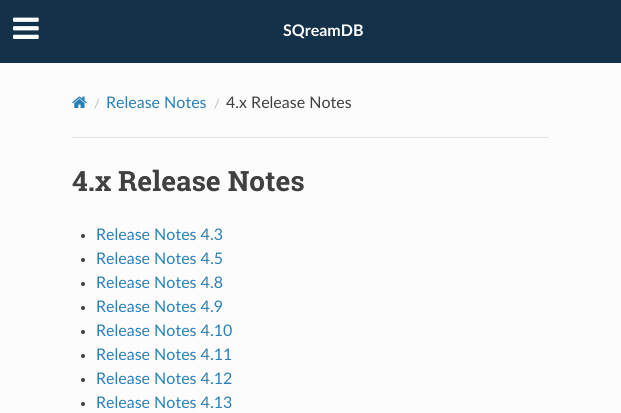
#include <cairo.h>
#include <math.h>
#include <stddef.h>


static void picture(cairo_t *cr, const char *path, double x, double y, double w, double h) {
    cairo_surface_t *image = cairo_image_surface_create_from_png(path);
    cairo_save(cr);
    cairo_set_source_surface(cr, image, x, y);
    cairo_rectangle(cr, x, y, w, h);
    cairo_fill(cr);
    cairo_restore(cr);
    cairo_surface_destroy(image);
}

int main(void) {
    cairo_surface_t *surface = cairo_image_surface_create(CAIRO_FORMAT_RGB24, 621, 413);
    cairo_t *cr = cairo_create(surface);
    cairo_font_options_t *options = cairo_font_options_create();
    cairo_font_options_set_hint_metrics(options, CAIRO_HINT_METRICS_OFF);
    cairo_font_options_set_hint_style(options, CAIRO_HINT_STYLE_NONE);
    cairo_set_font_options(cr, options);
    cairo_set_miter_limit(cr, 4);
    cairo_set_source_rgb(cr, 0.988, 0.988, 0.988);
    cairo_paint(cr);
    cairo_set_source_rgb(cr, 0.075, 0.192, 0.282);
    cairo_rectangle(cr, 0, 0, 621, 63);
    cairo_fill(cr);
    picture(cr, "img1.png", 13, 17, 26, 22);
    cairo_select_font_face(cr, "Lato", CAIRO_FONT_SLANT_NORMAL, CAIRO_FONT_WEIGHT_BOLD);
    cairo_set_font_size(cr, 16);
    cairo_set_source_rgb(cr, 1, 1, 1);
    cairo_move_to(cr, 283, 36);
    cairo_show_text(cr, "SQreamDB");
    picture(cr, "img2.png", 72, 96, 15, 12);
    cairo_select_font_face(cr, "Lato", CAIRO_FONT_SLANT_NORMAL, CAIRO_FONT_WEIGHT_NORMAL);
    cairo_set_font_size(cr, 13);
    cairo_set_source_rgb(cr, 0.733, 0.733, 0.733);
    cairo_move_to(cr, 94, 108);
    cairo_show_text(cr, "/");
    cairo_set_font_size(cr, 16);
    cairo_set_source_rgb(cr, 0.161, 0.502, 0.725);
    cairo_move_to(cr, 106, 108);
    cairo_show_text(cr, "Release Notes");
    cairo_set_font_size(cr, 13);
    cairo_set_source_rgb(cr, 0.733, 0.733, 0.733);
    cairo_move_to(cr, 214, 108);
    cairo_show_text(cr, "/");
    cairo_set_font_size(cr, 16);
    cairo_set_source_rgb(cr, 0.251, 0.251, 0.251);
    cairo_move_to(cr, 226, 108);
    cairo_show_text(cr, "4.x Release Notes");
    cairo_set_source_rgb(cr, 0.882, 0.894, 0.898);
    cairo_rectangle(cr, 72, 137, 477, 1);
    cairo_fill(cr);
    cairo_select_font_face(cr, "Roboto Slab", CAIRO_FONT_SLANT_NORMAL, CAIRO_FONT_WEIGHT_BOLD);
    cairo_set_font_size(cr, 28);
    cairo_set_source_rgb(cr, 0.251, 0.251, 0.251);
    cairo_move_to(cr, 72, 191);
    cairo_show_text(cr, "4.x Release Notes");
    cairo_new_path(cr);
    cairo_arc(cr, 83, 236, 2, 0, 2 * M_PI);
    cairo_fill(cr);
    cairo_select_font_face(cr, "Lato", CAIRO_FONT_SLANT_NORMAL, CAIRO_FONT_WEIGHT_NORMAL);
    cairo_set_font_size(cr, 16);
    cairo_set_source_rgb(cr, 0.161, 0.502, 0.725);
    cairo_move_to(cr, 96, 240);
    cairo_show_text(cr, "Release Notes 4.3");
    cairo_set_source_rgb(cr, 0.251, 0.251, 0.251);
    cairo_new_path(cr);
    cairo_arc(cr, 83, 260, 2, 0, 2 * M_PI);
    cairo_fill(cr);
    cairo_set_source_rgb(cr, 0.161, 0.502, 0.725);
    cairo_move_to(cr, 96, 264);
    cairo_show_text(cr, "Release Notes 4.5");
    cairo_set_source_rgb(cr, 0.251, 0.251, 0.251);
    cairo_new_path(cr);
    cairo_arc(cr, 83, 284, 2, 0, 2 * M_PI);
    cairo_fill(cr);
    cairo_set_source_rgb(cr, 0.161, 0.502, 0.725);
    cairo_move_to(cr, 96, 288);
    cairo_show_text(cr, "Release Notes 4.8");
    cairo_set_source_rgb(cr, 0.251, 0.251, 0.251);
    cairo_new_path(cr);
    cairo_arc(cr, 83, 308, 2, 0, 2 * M_PI);
    cairo_fill(cr);
    cairo_set_source_rgb(cr, 0.161, 0.502, 0.725);
    cairo_move_to(cr, 96, 312);
    cairo_show_text(cr, "Release Notes 4.9");
    cairo_set_source_rgb(cr, 0.251, 0.251, 0.251);
    cairo_new_path(cr);
    cairo_arc(cr, 83, 332, 2, 0, 2 * M_PI);
    cairo_fill(cr);
    cairo_set_source_rgb(cr, 0.161, 0.502, 0.725);
    cairo_move_to(cr, 96, 336);
    cairo_show_text(cr, "Release Notes 4.10");
    cairo_set_source_rgb(cr, 0.251, 0.251, 0.251);
    cairo_new_path(cr);
    cairo_arc(cr, 83, 356, 2, 0, 2 * M_PI);
    cairo_fill(cr);
    cairo_set_source_rgb(cr, 0.161, 0.502, 0.725);
    cairo_move_to(cr, 96, 360);
    cairo_show_text(cr, "Release Notes 4.11");
    cairo_set_source_rgb(cr, 0.251, 0.251, 0.251);
    cairo_new_path(cr);
    cairo_arc(cr, 83, 380, 2, 0, 2 * M_PI);
    cairo_fill(cr);
    cairo_set_source_rgb(cr, 0.161, 0.502, 0.725);
    cairo_move_to(cr, 96, 384);
    cairo_show_text(cr, "Release Notes 4.12");
    cairo_set_source_rgb(cr, 0.251, 0.251, 0.251);
    cairo_new_path(cr);
    cairo_arc(cr, 83, 404, 2, 0, 2 * M_PI);
    cairo_fill(cr);
    cairo_set_source_rgb(cr, 0.161, 0.502, 0.725);
    cairo_move_to(cr, 96, 408);
    cairo_show_text(cr, "Release Notes 4.13");
    cairo_surface_write_to_png(surface, "page.png");
    cairo_font_options_destroy(options);
    cairo_destroy(cr);
    cairo_surface_destroy(surface);
    return 0;
}
